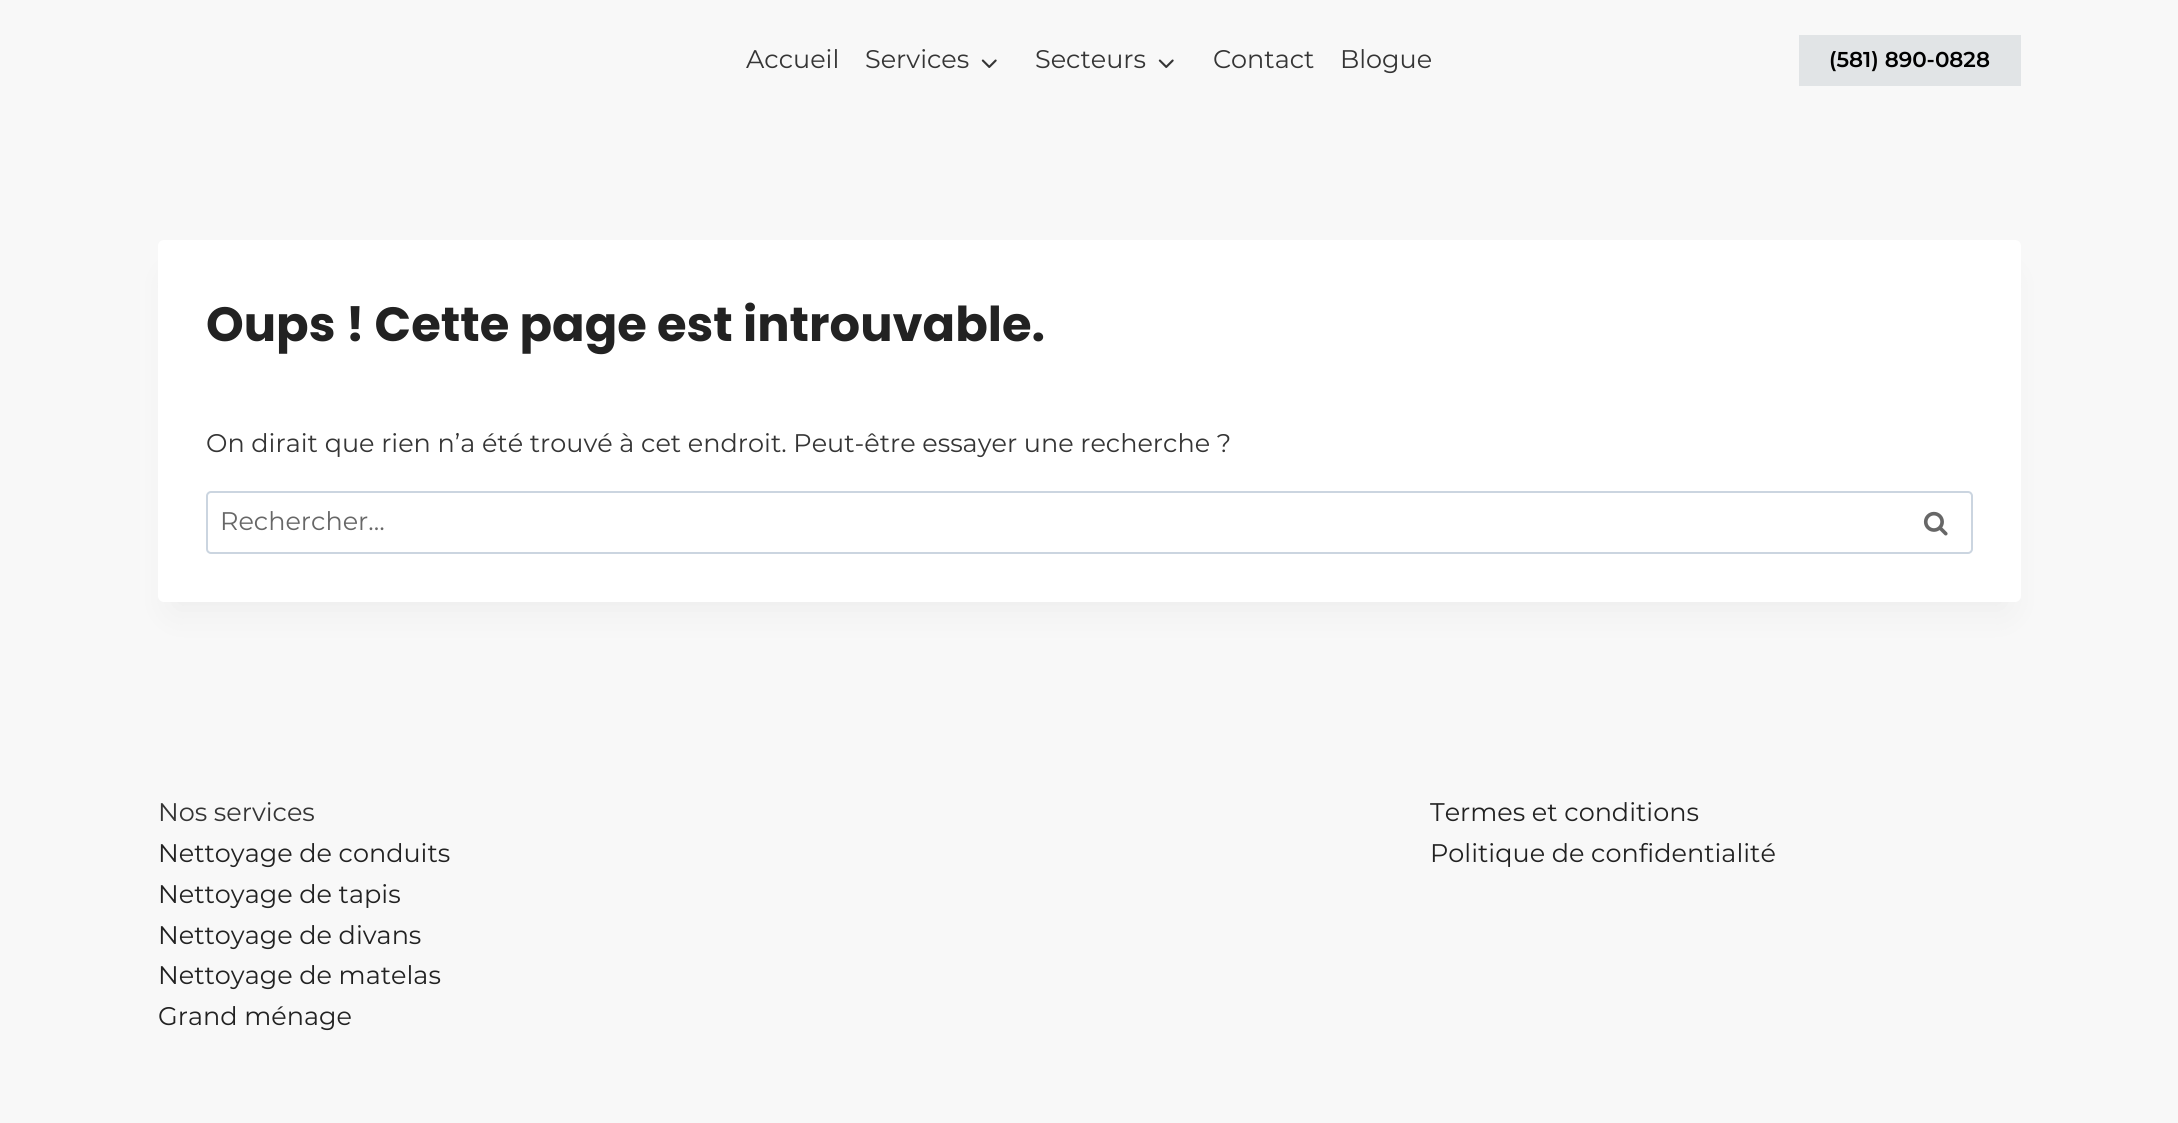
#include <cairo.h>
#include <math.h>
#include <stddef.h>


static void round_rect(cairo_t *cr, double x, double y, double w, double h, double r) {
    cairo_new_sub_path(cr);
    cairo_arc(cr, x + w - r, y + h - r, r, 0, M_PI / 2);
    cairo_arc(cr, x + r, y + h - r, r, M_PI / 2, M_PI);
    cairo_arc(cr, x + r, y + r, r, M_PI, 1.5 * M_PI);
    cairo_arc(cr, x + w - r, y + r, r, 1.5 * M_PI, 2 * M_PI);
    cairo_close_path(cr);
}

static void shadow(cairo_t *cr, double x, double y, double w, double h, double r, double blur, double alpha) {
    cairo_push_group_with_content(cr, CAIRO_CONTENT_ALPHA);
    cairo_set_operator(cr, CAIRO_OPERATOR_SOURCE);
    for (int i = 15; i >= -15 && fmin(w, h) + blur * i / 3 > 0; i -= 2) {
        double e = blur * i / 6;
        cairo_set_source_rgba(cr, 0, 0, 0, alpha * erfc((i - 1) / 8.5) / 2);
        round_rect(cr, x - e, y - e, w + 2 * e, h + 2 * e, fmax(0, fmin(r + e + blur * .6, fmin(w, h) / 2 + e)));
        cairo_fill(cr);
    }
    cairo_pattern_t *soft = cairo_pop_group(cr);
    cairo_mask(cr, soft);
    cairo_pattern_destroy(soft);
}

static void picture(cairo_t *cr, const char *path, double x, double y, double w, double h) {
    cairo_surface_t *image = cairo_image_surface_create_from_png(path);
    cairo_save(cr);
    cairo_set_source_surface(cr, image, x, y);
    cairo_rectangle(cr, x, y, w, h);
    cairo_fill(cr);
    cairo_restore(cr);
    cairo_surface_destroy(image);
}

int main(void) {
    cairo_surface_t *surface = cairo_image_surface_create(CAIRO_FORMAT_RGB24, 2178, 1123);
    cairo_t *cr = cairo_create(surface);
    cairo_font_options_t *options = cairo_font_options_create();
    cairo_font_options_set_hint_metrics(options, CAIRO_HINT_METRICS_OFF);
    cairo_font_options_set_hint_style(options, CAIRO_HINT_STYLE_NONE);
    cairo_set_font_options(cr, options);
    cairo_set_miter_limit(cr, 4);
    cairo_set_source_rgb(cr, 0.969, 0.969, 0.969);
    cairo_paint(cr);
    cairo_select_font_face(cr, "Montserrat", CAIRO_FONT_SLANT_NORMAL, CAIRO_FONT_WEIGHT_NORMAL);
    cairo_set_font_size(cr, 25.5);
    cairo_set_source_rgb(cr, 0.208, 0.208, 0.208);
    cairo_move_to(cr, 746, 68);
    cairo_show_text(cr, "Accueil");
    cairo_move_to(cr, 865, 68);
    cairo_show_text(cr, "Services");
    picture(cr, "img1.png", 981, 59, 16, 9);
    cairo_move_to(cr, 1035, 68);
    cairo_show_text(cr, "Secteurs");
    picture(cr, "img1.png", 1158, 59, 16, 9);
    cairo_move_to(cr, 1213, 68);
    cairo_show_text(cr, "Contact");
    cairo_move_to(cr, 1340, 68);
    cairo_show_text(cr, "Blogue");
    cairo_set_source_rgb(cr, 0.882, 0.894, 0.902);
    cairo_rectangle(cr, 1799, 35, 222, 51);
    cairo_fill(cr);
    cairo_select_font_face(cr, "Montserrat SemiBold", CAIRO_FONT_SLANT_NORMAL, CAIRO_FONT_WEIGHT_NORMAL);
    cairo_set_font_size(cr, 21.5);
    cairo_set_source_rgb(cr, 0, 0, 0);
    cairo_move_to(cr, 1829, 67);
    cairo_show_text(cr, "(581) 890-0828");
    cairo_set_source_rgb(cr, 0, 0, 0);
    shadow(cr, 173, 278, 1833, 331, 0, 19, 0.05);
    cairo_set_source_rgb(cr, 1, 1, 1);
    round_rect(cr, 158, 240, 1863, 362, 6);
    cairo_fill(cr);
    cairo_select_font_face(cr, "Poppins", CAIRO_FONT_SLANT_NORMAL, CAIRO_FONT_WEIGHT_BOLD);
    cairo_set_font_size(cr, 48);
    cairo_set_source_rgb(cr, 0.133, 0.133, 0.133);
    cairo_move_to(cr, 206, 341);
    cairo_show_text(cr, "Oups ! Cette page est introuvable.");
    cairo_select_font_face(cr, "Montserrat", CAIRO_FONT_SLANT_NORMAL, CAIRO_FONT_WEIGHT_NORMAL);
    cairo_set_font_size(cr, 25.5);
    cairo_set_source_rgb(cr, 0.208, 0.208, 0.208);
    cairo_move_to(cr, 206, 452);
    cairo_show_text(cr, "On dirait que rien n’a été trouvé à cet endroit. Peut-être essayer une recherche ?");
    round_rect(cr, 207, 492, 1765, 61, 4);
    cairo_set_source_rgb(cr, 0.796, 0.835, 0.878);
    cairo_stroke(cr);
    cairo_set_source_rgb(cr, 0.404, 0.404, 0.404);
    cairo_move_to(cr, 220, 530);
    cairo_show_text(cr, "Rechercher…");
    picture(cr, "img2.png", 1923, 511, 25, 25);
    cairo_set_source_rgb(cr, 0.208, 0.208, 0.208);
    cairo_move_to(cr, 158, 821);
    cairo_show_text(cr, "Nos services");
    cairo_set_source_rgb(cr, 0.133, 0.133, 0.133);
    cairo_move_to(cr, 158, 862);
    cairo_show_text(cr, "Nettoyage de conduits");
    cairo_move_to(cr, 158, 903);
    cairo_show_text(cr, "Nettoyage de tapis");
    cairo_move_to(cr, 158, 944);
    cairo_show_text(cr, "Nettoyage de divans");
    cairo_move_to(cr, 158, 984);
    cairo_show_text(cr, "Nettoyage de matelas");
    cairo_move_to(cr, 158, 1025);
    cairo_show_text(cr, "Grand ménage");
    cairo_move_to(cr, 1430, 821);
    cairo_show_text(cr, "Termes et conditions");
    cairo_move_to(cr, 1430, 862);
    cairo_show_text(cr, "Politique de confidentialité");
    cairo_surface_write_to_png(surface, "page.png");
    cairo_font_options_destroy(options);
    cairo_destroy(cr);
    cairo_surface_destroy(surface);
    return 0;
}
